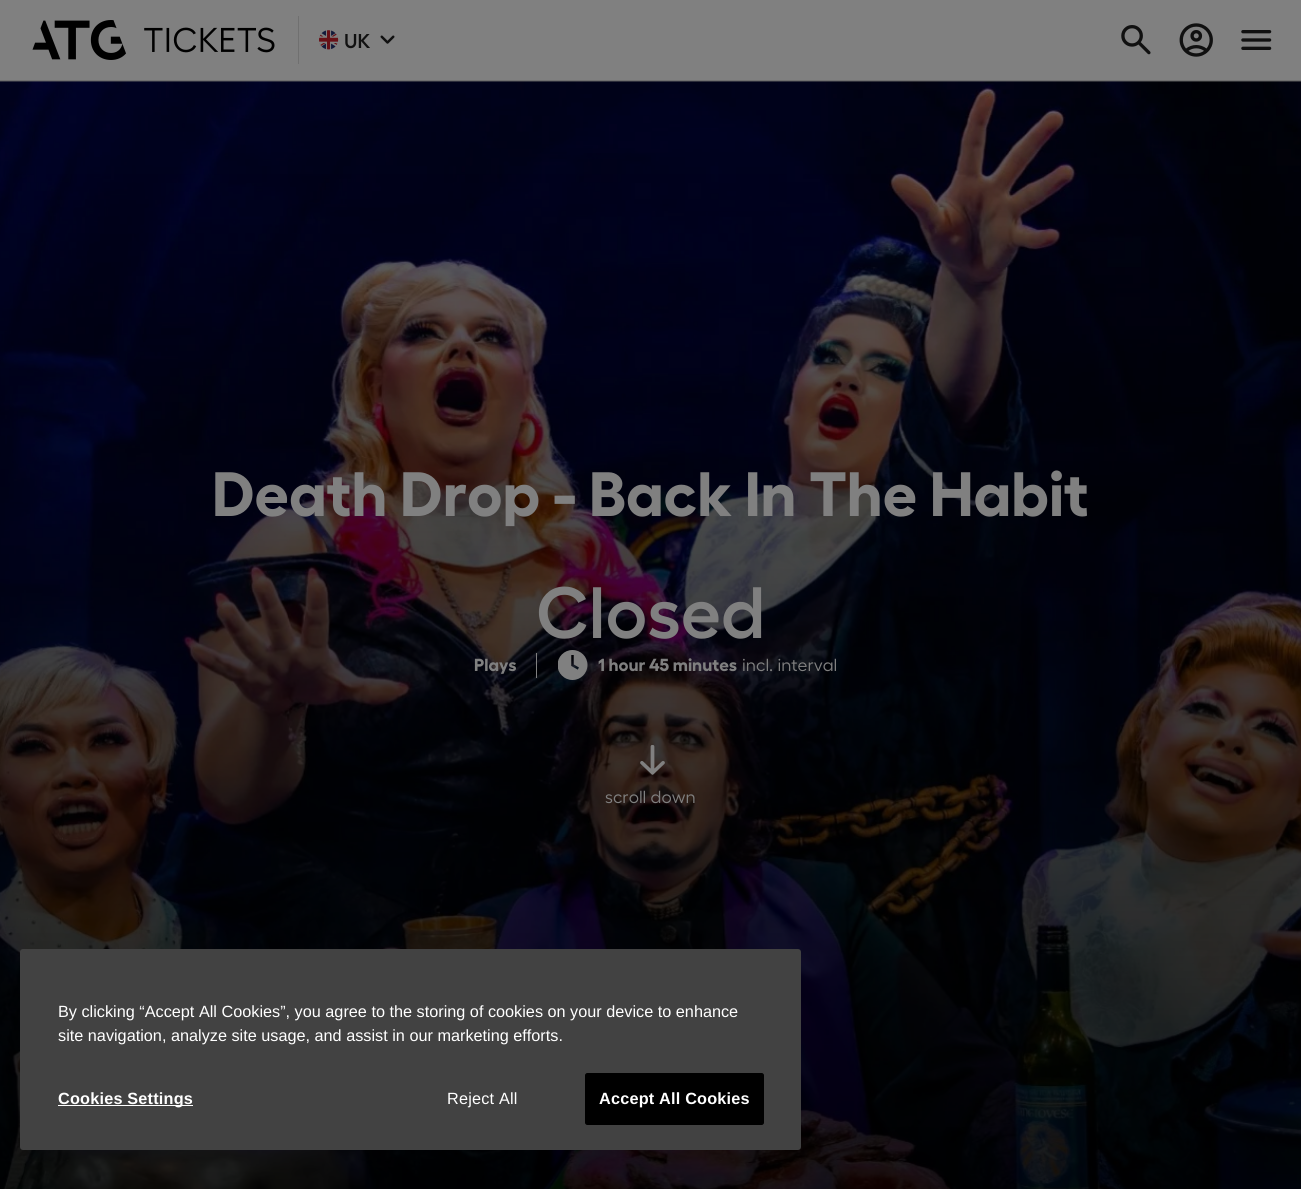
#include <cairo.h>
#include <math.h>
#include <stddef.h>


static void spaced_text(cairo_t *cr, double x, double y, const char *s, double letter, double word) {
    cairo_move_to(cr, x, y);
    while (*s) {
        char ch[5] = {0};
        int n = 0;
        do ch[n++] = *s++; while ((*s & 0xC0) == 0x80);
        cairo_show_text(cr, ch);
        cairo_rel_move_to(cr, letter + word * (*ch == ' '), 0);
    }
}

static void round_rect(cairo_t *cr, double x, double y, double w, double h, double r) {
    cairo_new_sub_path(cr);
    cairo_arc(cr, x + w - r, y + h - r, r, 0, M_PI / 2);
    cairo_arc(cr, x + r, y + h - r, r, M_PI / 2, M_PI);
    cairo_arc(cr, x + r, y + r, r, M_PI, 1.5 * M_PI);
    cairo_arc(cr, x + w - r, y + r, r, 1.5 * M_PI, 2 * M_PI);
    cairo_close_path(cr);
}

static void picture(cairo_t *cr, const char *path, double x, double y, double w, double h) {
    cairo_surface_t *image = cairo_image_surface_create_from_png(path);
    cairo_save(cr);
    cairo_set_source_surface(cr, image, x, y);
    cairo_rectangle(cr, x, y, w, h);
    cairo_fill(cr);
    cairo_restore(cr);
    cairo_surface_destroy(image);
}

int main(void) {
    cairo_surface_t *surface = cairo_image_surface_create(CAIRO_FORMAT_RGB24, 1301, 1189);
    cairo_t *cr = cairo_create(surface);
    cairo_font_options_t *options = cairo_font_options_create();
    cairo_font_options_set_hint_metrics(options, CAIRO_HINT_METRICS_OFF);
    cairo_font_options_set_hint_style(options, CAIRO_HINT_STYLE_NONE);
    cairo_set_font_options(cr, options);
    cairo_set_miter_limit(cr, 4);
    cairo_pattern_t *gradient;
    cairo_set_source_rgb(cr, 0.502, 0.502, 0.502);
    cairo_paint(cr);
    cairo_set_source_rgb(cr, 0.439, 0.439, 0.439);
    cairo_rectangle(cr, 0, 80, 1301, 1);
    cairo_fill(cr);
    picture(cr, "img1.png", 32, 20, 243, 40);
    cairo_rectangle(cr, 298, 16, 1, 48);
    cairo_fill(cr);
    picture(cr, "img2.png", 319, 30, 20, 20);
    cairo_select_font_face(cr, "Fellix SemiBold", CAIRO_FONT_SLANT_NORMAL, CAIRO_FONT_WEIGHT_NORMAL);
    cairo_set_font_size(cr, 20);
    cairo_set_source_rgb(cr, 0.067, 0.067, 0.067);
    cairo_move_to(cr, 344, 48);
    cairo_show_text(cr, "UK");
    picture(cr, "img3.png", 380, 35, 15, 9);
    picture(cr, "img4.png", 1121, 25, 30, 30);
    picture(cr, "img5.png", 1179, 23, 34, 34);
    picture(cr, "img6.png", 1241, 30, 31, 20);
    picture(cr, "img7.png", 0, 81, 1301, 1108);
    gradient = cairo_pattern_create_linear(651, 81, 651, 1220);
    cairo_pattern_add_color_stop_rgba(gradient, 0, 0, 0, 0, 0.2);
    cairo_pattern_add_color_stop_rgba(gradient, 1, 0, 0, 0, 0.8);
    cairo_set_source(cr, gradient);
    cairo_pattern_destroy(gradient);
    cairo_rectangle(cr, 0, 81, 1301, 1108);
    cairo_fill(cr);
    cairo_select_font_face(cr, "Fellix", CAIRO_FONT_SLANT_NORMAL, CAIRO_FONT_WEIGHT_BOLD);
    cairo_set_font_size(cr, 62.5);
    cairo_set_source_rgb(cr, 0.502, 0.502, 0.502);
    cairo_move_to(cr, 212, 516);
    cairo_show_text(cr, "Death Drop - Back In The Habit");
    cairo_select_font_face(cr, "Fellix SemiBold", CAIRO_FONT_SLANT_NORMAL, CAIRO_FONT_WEIGHT_NORMAL);
    cairo_set_font_size(cr, 72.5);
    cairo_move_to(cr, 536, 638);
    cairo_show_text(cr, "Closed");
    cairo_select_font_face(cr, "Fellix", CAIRO_FONT_SLANT_NORMAL, CAIRO_FONT_WEIGHT_BOLD);
    cairo_set_font_size(cr, 17.5);
    cairo_move_to(cr, 474, 671);
    cairo_show_text(cr, "Plays");
    cairo_rectangle(cr, 536, 653, 1, 25);
    cairo_fill(cr);
    picture(cr, "img8.png", 558, 650, 30, 30);
    cairo_move_to(cr, 598, 671);
    cairo_show_text(cr, "1 hour 45 minutes");
    cairo_select_font_face(cr, "Fellix", CAIRO_FONT_SLANT_NORMAL, CAIRO_FONT_WEIGHT_NORMAL);
    cairo_move_to(cr, 742, 671);
    cairo_show_text(cr, "incl. interval");
    picture(cr, "img9.png", 640, 745, 25, 30);
    cairo_move_to(cr, 605, 803);
    cairo_show_text(cr, "scroll down");
    cairo_set_source_rgb(cr, 0.259, 0.259, 0.259);
    round_rect(cr, 20, 949, 781, 201, 3);
    cairo_fill(cr);
    cairo_select_font_face(cr, "Liberation Sans", CAIRO_FONT_SLANT_NORMAL, CAIRO_FONT_WEIGHT_NORMAL);
    cairo_set_font_size(cr, 16.25);
    cairo_set_source_rgb(cr, 1, 1, 1);
    cairo_move_to(cr, 58, 1017);
    cairo_show_text(cr, "By clicking “Accept All Cookies”, you agree to the storing of cookies on your device to enhance");
    cairo_move_to(cr, 58, 1041);
    cairo_show_text(cr, "site navigation, analyze site usage, and assist in our marketing efforts.");
    cairo_rectangle(cr, 58, 1105, 135, 1);
    cairo_fill(cr);
    cairo_select_font_face(cr, "Liberation Sans", CAIRO_FONT_SLANT_NORMAL, CAIRO_FONT_WEIGHT_BOLD);
    spaced_text(cr, 58, 1104, "Cookies Settings", 0.2, 0);
    cairo_select_font_face(cr, "Liberation Sans", CAIRO_FONT_SLANT_NORMAL, CAIRO_FONT_WEIGHT_NORMAL);
    spaced_text(cr, 447, 1104, "Reject All", 0.2, 0);
    cairo_set_source_rgb(cr, 0, 0, 0);
    round_rect(cr, 585.5, 1073.5, 178, 51, 2);
    cairo_fill_preserve(cr);
    cairo_set_line_width(cr, 1);
    cairo_stroke(cr);
    cairo_select_font_face(cr, "Liberation Sans", CAIRO_FONT_SLANT_NORMAL, CAIRO_FONT_WEIGHT_BOLD);
    cairo_set_source_rgb(cr, 1, 1, 1);
    spaced_text(cr, 599, 1104, "Accept All Cookies", 0.2, 0);
    cairo_surface_write_to_png(surface, "page.png");
    cairo_font_options_destroy(options);
    cairo_destroy(cr);
    cairo_surface_destroy(surface);
    return 0;
}
